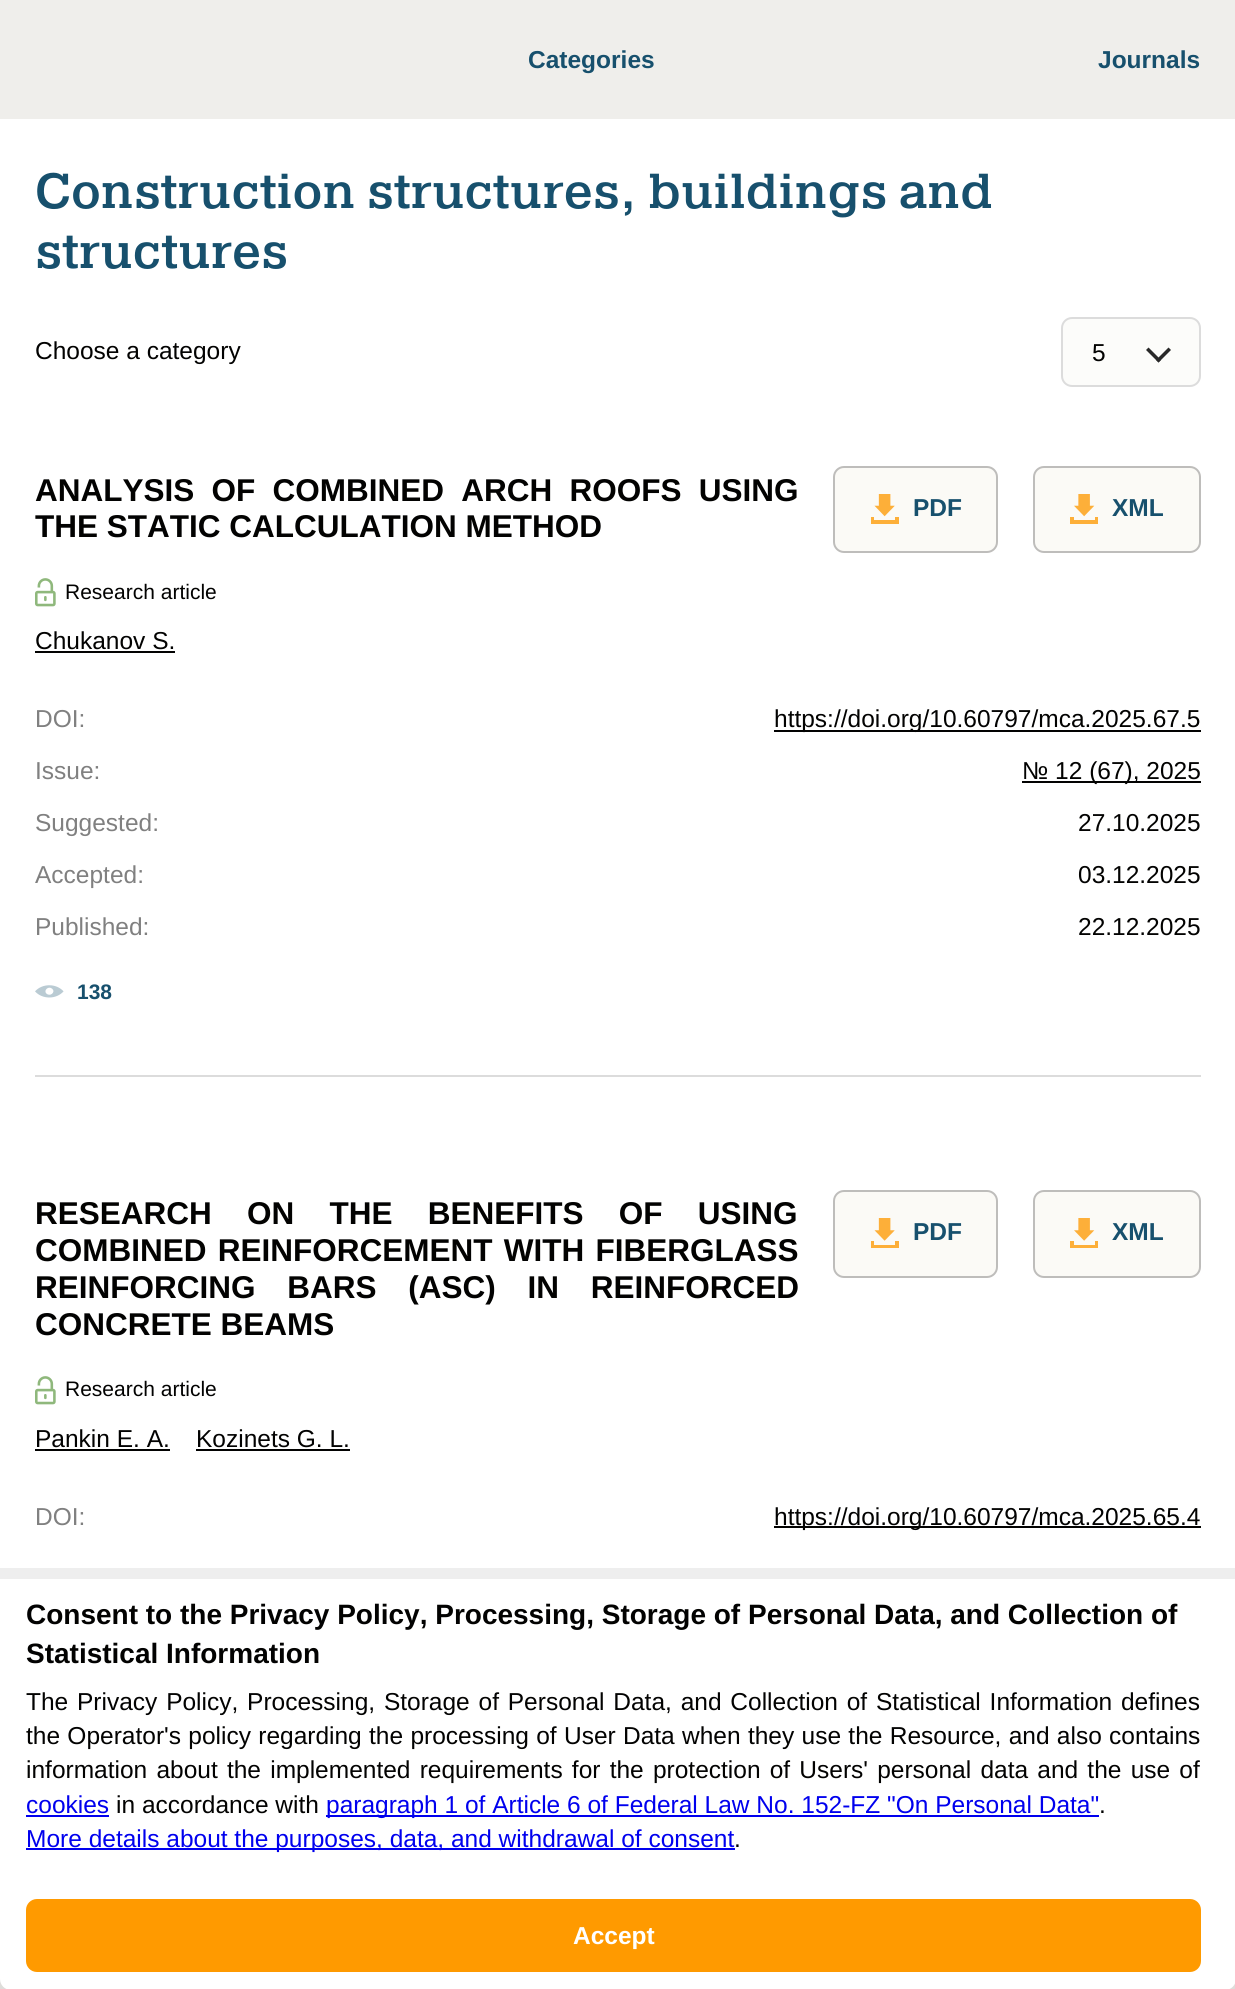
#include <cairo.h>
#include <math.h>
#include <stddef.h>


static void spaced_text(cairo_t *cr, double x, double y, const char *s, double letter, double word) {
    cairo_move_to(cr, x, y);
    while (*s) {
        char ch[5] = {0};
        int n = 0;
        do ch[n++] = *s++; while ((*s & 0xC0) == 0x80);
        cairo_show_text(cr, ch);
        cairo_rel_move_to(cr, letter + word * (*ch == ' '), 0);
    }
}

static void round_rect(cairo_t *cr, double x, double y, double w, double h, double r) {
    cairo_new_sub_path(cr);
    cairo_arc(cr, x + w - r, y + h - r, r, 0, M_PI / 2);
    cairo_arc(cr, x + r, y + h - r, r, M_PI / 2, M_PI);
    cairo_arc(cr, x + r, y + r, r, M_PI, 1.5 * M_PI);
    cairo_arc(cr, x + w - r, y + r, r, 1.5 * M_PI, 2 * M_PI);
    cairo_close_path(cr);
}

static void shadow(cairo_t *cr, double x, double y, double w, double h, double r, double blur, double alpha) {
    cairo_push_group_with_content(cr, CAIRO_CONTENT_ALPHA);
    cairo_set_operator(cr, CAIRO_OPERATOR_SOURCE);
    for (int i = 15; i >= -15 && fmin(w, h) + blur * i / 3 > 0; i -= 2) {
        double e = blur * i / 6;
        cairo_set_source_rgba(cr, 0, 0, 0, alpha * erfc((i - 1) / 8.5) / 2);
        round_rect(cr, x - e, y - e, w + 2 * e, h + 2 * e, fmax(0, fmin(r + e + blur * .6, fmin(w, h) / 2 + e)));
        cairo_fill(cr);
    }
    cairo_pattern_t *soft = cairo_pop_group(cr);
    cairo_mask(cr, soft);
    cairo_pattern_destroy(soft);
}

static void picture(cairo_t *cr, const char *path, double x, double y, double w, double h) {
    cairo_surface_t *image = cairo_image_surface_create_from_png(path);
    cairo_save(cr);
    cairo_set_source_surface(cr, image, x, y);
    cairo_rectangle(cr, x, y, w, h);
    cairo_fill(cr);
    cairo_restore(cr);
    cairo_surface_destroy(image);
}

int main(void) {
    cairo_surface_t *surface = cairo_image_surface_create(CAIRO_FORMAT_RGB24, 1235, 1989);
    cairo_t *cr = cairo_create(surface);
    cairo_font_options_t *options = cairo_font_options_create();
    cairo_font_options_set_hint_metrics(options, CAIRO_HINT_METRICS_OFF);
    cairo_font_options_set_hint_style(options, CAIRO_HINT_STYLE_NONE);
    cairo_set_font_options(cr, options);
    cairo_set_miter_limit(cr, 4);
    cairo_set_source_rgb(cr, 1, 1, 1);
    cairo_paint(cr);
    cairo_set_source_rgb(cr, 0.937, 0.933, 0.918);
    cairo_rectangle(cr, 0, 0, 1235, 119);
    cairo_fill(cr);
    cairo_select_font_face(cr, "Liberation Sans", CAIRO_FONT_SLANT_NORMAL, CAIRO_FONT_WEIGHT_BOLD);
    cairo_set_font_size(cr, 24.5);
    cairo_set_source_rgb(cr, 0.09, 0.314, 0.427);
    cairo_move_to(cr, 528, 68);
    cairo_show_text(cr, "Categories");
    cairo_move_to(cr, 1098, 68);
    cairo_show_text(cr, "Journals");
    cairo_select_font_face(cr, "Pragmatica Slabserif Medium", CAIRO_FONT_SLANT_NORMAL, CAIRO_FONT_WEIGHT_NORMAL);
    cairo_set_font_size(cr, 49);
    cairo_move_to(cr, 35, 208);
    cairo_show_text(cr, "Construction structures, buildings and");
    cairo_move_to(cr, 35, 268);
    cairo_show_text(cr, "structures");
    cairo_select_font_face(cr, "Liberation Sans", CAIRO_FONT_SLANT_NORMAL, CAIRO_FONT_WEIGHT_NORMAL);
    cairo_set_font_size(cr, 24.5);
    cairo_set_source_rgb(cr, 0.008, 0.008, 0.004);
    cairo_move_to(cr, 35, 359);
    cairo_show_text(cr, "Choose a category");
    cairo_set_source_rgb(cr, 0.988, 0.988, 0.98);
    round_rect(cr, 1062, 318, 138, 68, 10);
    cairo_fill_preserve(cr);
    cairo_set_source_rgb(cr, 0.863, 0.863, 0.863);
    cairo_stroke(cr);
    cairo_set_source_rgb(cr, 0.008, 0.008, 0.004);
    cairo_move_to(cr, 1092, 361);
    cairo_show_text(cr, "5");
    cairo_set_source_rgb(cr, 0.161, 0.161, 0.161);
    cairo_new_path(cr);
    cairo_move_to(cr, 1168.5, 347.5);
    cairo_line_to(cr, 1171, 350);
    cairo_line_to(cr, 1158.5, 362.5);
    cairo_line_to(cr, 1156, 360);
    cairo_close_path(cr);
    cairo_fill(cr);
    cairo_new_path(cr);
    cairo_move_to(cr, 1148.5, 347.5);
    cairo_line_to(cr, 1161, 360);
    cairo_line_to(cr, 1158.5, 362.5);
    cairo_line_to(cr, 1146, 350);
    cairo_close_path(cr);
    cairo_fill(cr);
    cairo_set_source_rgb(cr, 0.863, 0.863, 0.863);
    cairo_rectangle(cr, 35, 1075, 1166, 2);
    cairo_fill(cr);
    cairo_select_font_face(cr, "Liberation Sans", CAIRO_FONT_SLANT_NORMAL, CAIRO_FONT_WEIGHT_BOLD);
    cairo_set_font_size(cr, 31.5);
    cairo_set_source_rgb(cr, 0.008, 0.008, 0.004);
    spaced_text(cr, 35, 501, "ANALYSIS OF COMBINED ARCH ROOFS USING", 0, 8.5);
    cairo_move_to(cr, 35, 537);
    cairo_show_text(cr, "THE STATIC CALCULATION METHOD");
    cairo_set_source_rgb(cr, 0.984, 0.98, 0.961);
    round_rect(cr, 834, 467, 163, 85, 10);
    cairo_fill_preserve(cr);
    cairo_set_source_rgb(cr, 0.745, 0.741, 0.733);
    cairo_stroke(cr);
    picture(cr, "img1.png", 871, 494, 28, 30);
    cairo_set_font_size(cr, 24.5);
    cairo_set_source_rgb(cr, 0.09, 0.314, 0.427);
    cairo_move_to(cr, 913, 516);
    cairo_show_text(cr, "PDF");
    cairo_set_source_rgb(cr, 0.984, 0.98, 0.961);
    round_rect(cr, 1034, 467, 166, 85, 10);
    cairo_fill_preserve(cr);
    cairo_set_source_rgb(cr, 0.745, 0.741, 0.733);
    cairo_stroke(cr);
    picture(cr, "img2.png", 1070, 494, 28, 30);
    cairo_set_source_rgb(cr, 0.09, 0.314, 0.427);
    cairo_move_to(cr, 1112, 516);
    cairo_show_text(cr, "XML");
    picture(cr, "img3.png", 35, 578, 21, 29);
    cairo_select_font_face(cr, "Liberation Sans", CAIRO_FONT_SLANT_NORMAL, CAIRO_FONT_WEIGHT_NORMAL);
    cairo_set_font_size(cr, 21);
    cairo_set_source_rgb(cr, 0.008, 0.008, 0.004);
    cairo_move_to(cr, 65, 599);
    cairo_show_text(cr, "Research article");
    cairo_set_font_size(cr, 24.5);
    cairo_move_to(cr, 35, 649);
    cairo_show_text(cr, "Chukanov S.");
    cairo_rectangle(cr, 35, 651, 140, 2);
    cairo_fill(cr);
    cairo_set_source_rgb(cr, 0.502, 0.502, 0.502);
    cairo_move_to(cr, 35, 727);
    cairo_show_text(cr, "DOI:");
    cairo_set_source_rgb(cr, 0.008, 0.008, 0.004);
    cairo_rectangle(cr, 774, 730, 427, 2);
    cairo_fill(cr);
    cairo_move_to(cr, 774, 727);
    cairo_show_text(cr, "https://doi.org/10.60797/mca.2025.67.5");
    cairo_set_source_rgb(cr, 0.502, 0.502, 0.502);
    cairo_move_to(cr, 35, 779);
    cairo_show_text(cr, "Issue:");
    cairo_set_source_rgb(cr, 0.008, 0.008, 0.004);
    cairo_rectangle(cr, 1022, 781, 179, 2);
    cairo_fill(cr);
    cairo_move_to(cr, 1022, 779);
    cairo_show_text(cr, "№ 12 (67), 2025");
    cairo_set_source_rgb(cr, 0.502, 0.502, 0.502);
    cairo_move_to(cr, 35, 831);
    cairo_show_text(cr, "Suggested:");
    cairo_set_source_rgb(cr, 0.008, 0.008, 0.004);
    cairo_move_to(cr, 1078, 831);
    cairo_show_text(cr, "27.10.2025");
    cairo_set_source_rgb(cr, 0.502, 0.502, 0.502);
    cairo_move_to(cr, 35, 883);
    cairo_show_text(cr, "Accepted:");
    cairo_set_source_rgb(cr, 0.008, 0.008, 0.004);
    cairo_move_to(cr, 1078, 883);
    cairo_show_text(cr, "03.12.2025");
    cairo_set_source_rgb(cr, 0.502, 0.502, 0.502);
    cairo_move_to(cr, 35, 935);
    cairo_show_text(cr, "Published:");
    cairo_set_source_rgb(cr, 0.008, 0.008, 0.004);
    cairo_move_to(cr, 1078, 935);
    cairo_show_text(cr, "22.12.2025");
    picture(cr, "img4.png", 35, 985, 29, 13);
    cairo_select_font_face(cr, "Liberation Sans", CAIRO_FONT_SLANT_NORMAL, CAIRO_FONT_WEIGHT_BOLD);
    cairo_set_font_size(cr, 21);
    cairo_set_source_rgb(cr, 0.09, 0.314, 0.427);
    cairo_move_to(cr, 77, 999);
    cairo_show_text(cr, "138");
    cairo_set_font_size(cr, 31.5);
    cairo_set_source_rgb(cr, 0.008, 0.008, 0.004);
    spaced_text(cr, 35, 1224, "RESEARCH ON THE BENEFITS OF USING", 0, 26.5);
    spaced_text(cr, 35, 1261, "COMBINED REINFORCEMENT WITH FIBERGLASS", 0, 2.5);
    spaced_text(cr, 35, 1298, "REINFORCING BARS (ASC) IN REINFORCED", 0, 23);
    cairo_move_to(cr, 35, 1335);
    cairo_show_text(cr, "CONCRETE BEAMS");
    cairo_set_source_rgb(cr, 0.984, 0.98, 0.961);
    round_rect(cr, 834, 1191, 163, 86, 10);
    cairo_fill_preserve(cr);
    cairo_set_source_rgb(cr, 0.745, 0.741, 0.733);
    cairo_stroke(cr);
    picture(cr, "img5.png", 871, 1218, 28, 30);
    cairo_set_font_size(cr, 24.5);
    cairo_set_source_rgb(cr, 0.09, 0.314, 0.427);
    cairo_move_to(cr, 913, 1240);
    cairo_show_text(cr, "PDF");
    cairo_set_source_rgb(cr, 0.984, 0.98, 0.961);
    round_rect(cr, 1034, 1191, 166, 86, 10);
    cairo_fill_preserve(cr);
    cairo_set_source_rgb(cr, 0.745, 0.741, 0.733);
    cairo_stroke(cr);
    picture(cr, "img6.png", 1070, 1218, 28, 30);
    cairo_set_source_rgb(cr, 0.09, 0.314, 0.427);
    cairo_move_to(cr, 1112, 1240);
    cairo_show_text(cr, "XML");
    picture(cr, "img3.png", 35, 1376, 21, 29);
    cairo_select_font_face(cr, "Liberation Sans", CAIRO_FONT_SLANT_NORMAL, CAIRO_FONT_WEIGHT_NORMAL);
    cairo_set_font_size(cr, 21);
    cairo_set_source_rgb(cr, 0.008, 0.008, 0.004);
    cairo_move_to(cr, 65, 1396);
    cairo_show_text(cr, "Research article");
    cairo_set_font_size(cr, 24.5);
    cairo_move_to(cr, 35, 1447);
    cairo_show_text(cr, "Pankin E. A.");
    cairo_rectangle(cr, 35, 1449, 135, 2);
    cairo_fill(cr);
    cairo_move_to(cr, 196, 1447);
    cairo_show_text(cr, "Kozinets G. L.");
    cairo_rectangle(cr, 196, 1449, 154, 2);
    cairo_fill(cr);
    cairo_set_source_rgb(cr, 0.502, 0.502, 0.502);
    cairo_move_to(cr, 35, 1525);
    cairo_show_text(cr, "DOI:");
    cairo_set_source_rgb(cr, 0.008, 0.008, 0.004);
    cairo_rectangle(cr, 774, 1526, 427, 2);
    cairo_fill(cr);
    cairo_move_to(cr, 774, 1525);
    cairo_show_text(cr, "https://doi.org/10.60797/mca.2025.65.4");
    cairo_set_source_rgb(cr, 0.937, 0.933, 0.918);
    cairo_rectangle(cr, 0, 1979, 1235, 10);
    cairo_fill(cr);
    cairo_save(cr);
    cairo_rectangle(cr, 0, 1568, 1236, 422);
    cairo_clip(cr);
    cairo_set_source_rgb(cr, 0, 0, 0);
    shadow(cr, 0, 1568, 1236, 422, 11, 17.5, 0.2);
    cairo_restore(cr);
    cairo_set_source_rgb(cr, 1, 1, 1);
    round_rect(cr, 0, 1568, 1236, 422, 11);
    cairo_fill(cr);
    cairo_set_source_rgb(cr, 0.933, 0.933, 0.933);
    cairo_rectangle(cr, 0, 1568, 1235, 11);
    cairo_fill(cr);
    cairo_select_font_face(cr, "Liberation Sans", CAIRO_FONT_SLANT_NORMAL, CAIRO_FONT_WEIGHT_BOLD);
    cairo_set_font_size(cr, 28);
    cairo_set_source_rgb(cr, 0.008, 0.008, 0.004);
    cairo_move_to(cr, 26, 1624);
    cairo_show_text(cr, "Consent to the Privacy Policy, Processing, Storage of Personal Data, and Collection of");
    cairo_move_to(cr, 26, 1663);
    cairo_show_text(cr, "Statistical Information");
    cairo_select_font_face(cr, "Liberation Sans", CAIRO_FONT_SLANT_NORMAL, CAIRO_FONT_WEIGHT_NORMAL);
    cairo_set_font_size(cr, 24.5);
    spaced_text(cr, 26, 1710, "The Privacy Policy, Processing, Storage of Personal Data, and Collection of Statistical Information defines", 0, 2);
    spaced_text(cr, 26, 1744, "the Operator's policy regarding the processing of User Data when they use the Resource, and also contains", 0, 0.5);
    spaced_text(cr, 26, 1778, "information about the implemented requirements for the protection of Users' personal data and the use of", 0, 2.4);
    cairo_set_source_rgb(cr, 0, 0, 0.933);
    cairo_move_to(cr, 26, 1813);
    cairo_show_text(cr, "cookies");
    cairo_rectangle(cr, 26, 1815, 83, 2);
    cairo_fill(cr);
    cairo_set_source_rgb(cr, 0.008, 0.008, 0.004);
    cairo_move_to(cr, 116, 1813);
    cairo_show_text(cr, "in accordance with");
    cairo_set_source_rgb(cr, 0, 0, 0.933);
    cairo_rectangle(cr, 326, 1815, 773, 2);
    cairo_fill(cr);
    cairo_move_to(cr, 326, 1813);
    cairo_show_text(cr, "paragraph 1 of Article 6 of Federal Law No. 152-FZ \"On Personal Data\"");
    cairo_set_source_rgb(cr, 0.008, 0.008, 0.004);
    cairo_move_to(cr, 1099, 1813);
    cairo_show_text(cr, ".");
    cairo_set_source_rgb(cr, 0, 0, 0.933);
    cairo_rectangle(cr, 26, 1848, 709, 2);
    cairo_fill(cr);
    cairo_move_to(cr, 26, 1847);
    cairo_show_text(cr, "More details about the purposes, data, and withdrawal of consent");
    cairo_set_source_rgb(cr, 0.008, 0.008, 0.004);
    cairo_move_to(cr, 734, 1847);
    cairo_show_text(cr, ".");
    cairo_set_source_rgb(cr, 1, 0.604, 0);
    round_rect(cr, 27, 1900, 1173, 71, 10);
    cairo_fill_preserve(cr);
    cairo_stroke(cr);
    cairo_select_font_face(cr, "Liberation Sans", CAIRO_FONT_SLANT_NORMAL, CAIRO_FONT_WEIGHT_BOLD);
    cairo_set_source_rgb(cr, 1, 1, 1);
    cairo_move_to(cr, 573, 1944);
    cairo_show_text(cr, "Accept");
    cairo_surface_write_to_png(surface, "page.png");
    cairo_font_options_destroy(options);
    cairo_destroy(cr);
    cairo_surface_destroy(surface);
    return 0;
}
